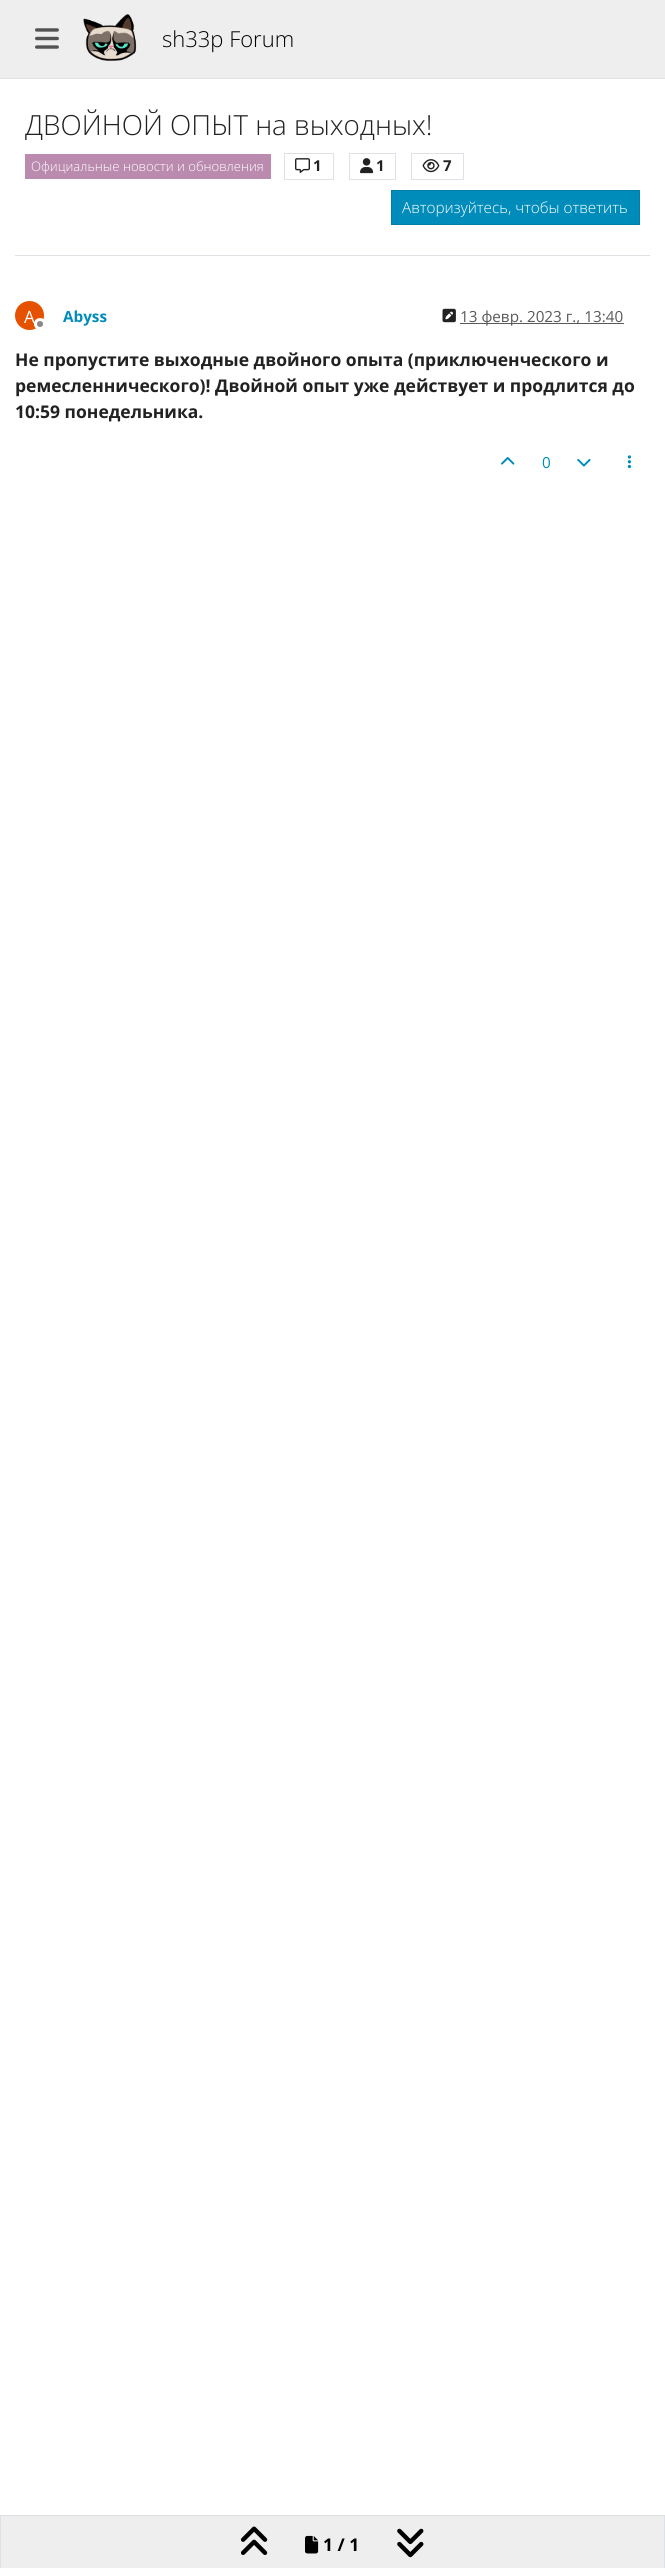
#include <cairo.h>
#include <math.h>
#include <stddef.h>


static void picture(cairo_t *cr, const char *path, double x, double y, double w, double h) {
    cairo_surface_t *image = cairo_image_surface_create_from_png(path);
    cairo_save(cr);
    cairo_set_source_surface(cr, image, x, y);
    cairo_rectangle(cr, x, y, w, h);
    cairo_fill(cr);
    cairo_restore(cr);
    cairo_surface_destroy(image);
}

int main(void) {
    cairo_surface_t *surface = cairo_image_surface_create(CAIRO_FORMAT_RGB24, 665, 2568);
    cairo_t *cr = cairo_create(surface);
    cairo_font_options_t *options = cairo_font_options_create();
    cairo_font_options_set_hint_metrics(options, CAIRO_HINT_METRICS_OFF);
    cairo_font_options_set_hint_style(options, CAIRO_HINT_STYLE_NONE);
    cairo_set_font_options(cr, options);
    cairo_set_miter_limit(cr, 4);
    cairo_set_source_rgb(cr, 1, 1, 1);
    cairo_paint(cr);
    cairo_set_source_rgb(cr, 0.933, 0.933, 0.933);
    cairo_rectangle(cr, 0, 0, 665, 78);
    cairo_fill(cr);
    cairo_set_source_rgb(cr, 0.871, 0.886, 0.902);
    cairo_rectangle(cr, 0, 78, 665, 1);
    cairo_fill(cr);
    picture(cr, "img1.png", 35, 28, 24, 21);
    picture(cr, "img2.png", 83, 14, 54, 47);
    cairo_select_font_face(cr, "Open Sans Light", CAIRO_FONT_SLANT_NORMAL, CAIRO_FONT_WEIGHT_NORMAL);
    cairo_set_font_size(cr, 22);
    cairo_set_source_rgb(cr, 0, 0, 0);
    cairo_move_to(cr, 162, 47);
    cairo_show_text(cr, "sh33p Forum");
    cairo_set_source_rgb(cr, 0.871, 0.886, 0.902);
    cairo_rectangle(cr, 15, 255, 635, 1);
    cairo_fill(cr);
    cairo_set_font_size(cr, 27.75);
    cairo_set_source_rgb(cr, 0.133, 0.133, 0.133);
    cairo_move_to(cr, 25, 135);
    cairo_show_text(cr, "ДВОЙНОЙ ОПЫТ на выходных!");
    cairo_set_source_rgb(cr, 0.729, 0.545, 0.686);
    cairo_rectangle(cr, 25, 154, 246, 25);
    cairo_fill(cr);
    cairo_set_font_size(cr, 13.1);
    cairo_set_source_rgb(cr, 1, 1, 1);
    cairo_move_to(cr, 31, 171);
    cairo_show_text(cr, "Официальные новости и обновления");
    cairo_rectangle(cr, 284.5, 153.5, 49, 26);
    cairo_set_source_rgb(cr, 0.871, 0.886, 0.902);
    cairo_set_line_width(cr, 1);
    cairo_stroke(cr);
    picture(cr, "img3.png", 295, 158, 15, 16);
    cairo_select_font_face(cr, "Open Sans", CAIRO_FONT_SLANT_NORMAL, CAIRO_FONT_WEIGHT_BOLD);
    cairo_set_font_size(cr, 15);
    cairo_set_source_rgb(cr, 0.133, 0.133, 0.133);
    cairo_move_to(cr, 313, 171);
    cairo_show_text(cr, "1");
    cairo_rectangle(cr, 349.5, 153.5, 46, 26);
    cairo_set_source_rgb(cr, 0.871, 0.886, 0.902);
    cairo_stroke(cr);
    picture(cr, "img4.png", 360, 158, 14, 16);
    cairo_set_source_rgb(cr, 0.133, 0.133, 0.133);
    cairo_move_to(cr, 376, 171);
    cairo_show_text(cr, "1");
    cairo_rectangle(cr, 411.5, 153.5, 52, 26);
    cairo_set_source_rgb(cr, 0.871, 0.886, 0.902);
    cairo_stroke(cr);
    picture(cr, "img5.png", 422, 159, 18, 14);
    cairo_set_source_rgb(cr, 0.133, 0.133, 0.133);
    cairo_move_to(cr, 443, 171);
    cairo_show_text(cr, "7");
    cairo_set_source_rgb(cr, 0, 0.549, 0.729);
    cairo_rectangle(cr, 391.5, 190.5, 248, 34);
    cairo_fill_preserve(cr);
    cairo_set_source_rgb(cr, 0, 0.494, 0.655);
    cairo_stroke(cr);
    cairo_select_font_face(cr, "Open Sans Light", CAIRO_FONT_SLANT_NORMAL, CAIRO_FONT_WEIGHT_NORMAL);
    cairo_set_font_size(cr, 15.25);
    cairo_set_source_rgb(cr, 1, 1, 1);
    cairo_move_to(cr, 402, 213);
    cairo_show_text(cr, "Авторизуйтесь, чтобы ответить");
    cairo_set_source_rgb(cr, 0.902, 0.318, 0);
    cairo_new_path(cr);
    cairo_arc(cr, 29.5, 315.5, 14.5, 0, 2 * M_PI);
    cairo_fill(cr);
    cairo_select_font_face(cr, "Open Sans", CAIRO_FONT_SLANT_NORMAL, CAIRO_FONT_WEIGHT_NORMAL);
    cairo_set_font_size(cr, 17);
    cairo_set_source_rgb(cr, 1, 1, 1);
    cairo_move_to(cr, 24, 323);
    cairo_show_text(cr, "A");
    cairo_set_source_rgb(cr, 0.533, 0.533, 0.533);
    cairo_new_path(cr);
    cairo_arc(cr, 40, 324, 4.5, 0, 2 * M_PI);
    cairo_fill_preserve(cr);
    cairo_set_source_rgb(cr, 1, 1, 1);
    cairo_set_line_width(cr, 3);
    cairo_stroke(cr);
    cairo_select_font_face(cr, "Open Sans", CAIRO_FONT_SLANT_NORMAL, CAIRO_FONT_WEIGHT_BOLD);
    cairo_set_font_size(cr, 15.25);
    cairo_set_source_rgb(cr, 0, 0.549, 0.729);
    cairo_move_to(cr, 63, 322);
    cairo_show_text(cr, "Abyss");
    picture(cr, "img6.png", 442, 308, 14, 15);
    cairo_set_source_rgb(cr, 0.349, 0.349, 0.349);
    cairo_rectangle(cr, 460, 323, 164, 1);
    cairo_fill(cr);
    cairo_select_font_face(cr, "Open Sans", CAIRO_FONT_SLANT_NORMAL, CAIRO_FONT_WEIGHT_NORMAL);
    cairo_move_to(cr, 460, 322);
    cairo_show_text(cr, "13 февр. 2023 г., 13:40");
    cairo_select_font_face(cr, "Open Sans", CAIRO_FONT_SLANT_NORMAL, CAIRO_FONT_WEIGHT_BOLD);
    cairo_set_font_size(cr, 17.5);
    cairo_set_source_rgb(cr, 0.133, 0.133, 0.133);
    cairo_move_to(cr, 15, 366);
    cairo_show_text(cr, "Не пропустите выходные двойного опыта (приключенческого и");
    cairo_move_to(cr, 15, 392);
    cairo_show_text(cr, "ремесленнического)! Двойной опыт уже действует и продлится до");
    cairo_move_to(cr, 15, 418);
    cairo_show_text(cr, "10:59 понедельника.");
    picture(cr, "img7.png", 501, 457, 14, 8);
    cairo_select_font_face(cr, "Open Sans", CAIRO_FONT_SLANT_NORMAL, CAIRO_FONT_WEIGHT_NORMAL);
    cairo_set_font_size(cr, 15.25);
    cairo_set_source_rgb(cr, 0, 0.549, 0.729);
    cairo_move_to(cr, 542, 468);
    cairo_show_text(cr, "0");
    picture(cr, "img8.png", 577, 458, 14, 9);
    picture(cr, "img9.png", 627, 455, 5, 14);
    cairo_set_source_rgb(cr, 0.933, 0.933, 0.933);
    cairo_rectangle(cr, 0.5, 2515.5, 664, 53);
    cairo_fill_preserve(cr);
    cairo_set_source_rgb(cr, 0.871, 0.886, 0.902);
    cairo_set_line_width(cr, 1);
    cairo_stroke(cr);
    picture(cr, "img10.png", 241, 2526, 27, 29);
    picture(cr, "img11.png", 305, 2535, 14, 19);
    cairo_select_font_face(cr, "Open Sans", CAIRO_FONT_SLANT_NORMAL, CAIRO_FONT_WEIGHT_BOLD);
    cairo_set_font_size(cr, 17.5);
    cairo_set_source_rgb(cr, 0, 0, 0);
    cairo_move_to(cr, 323, 2551);
    cairo_show_text(cr, "1 / 1");
    picture(cr, "img12.png", 397, 2528, 27, 30);
    cairo_surface_write_to_png(surface, "page.png");
    cairo_font_options_destroy(options);
    cairo_destroy(cr);
    cairo_surface_destroy(surface);
    return 0;
}
